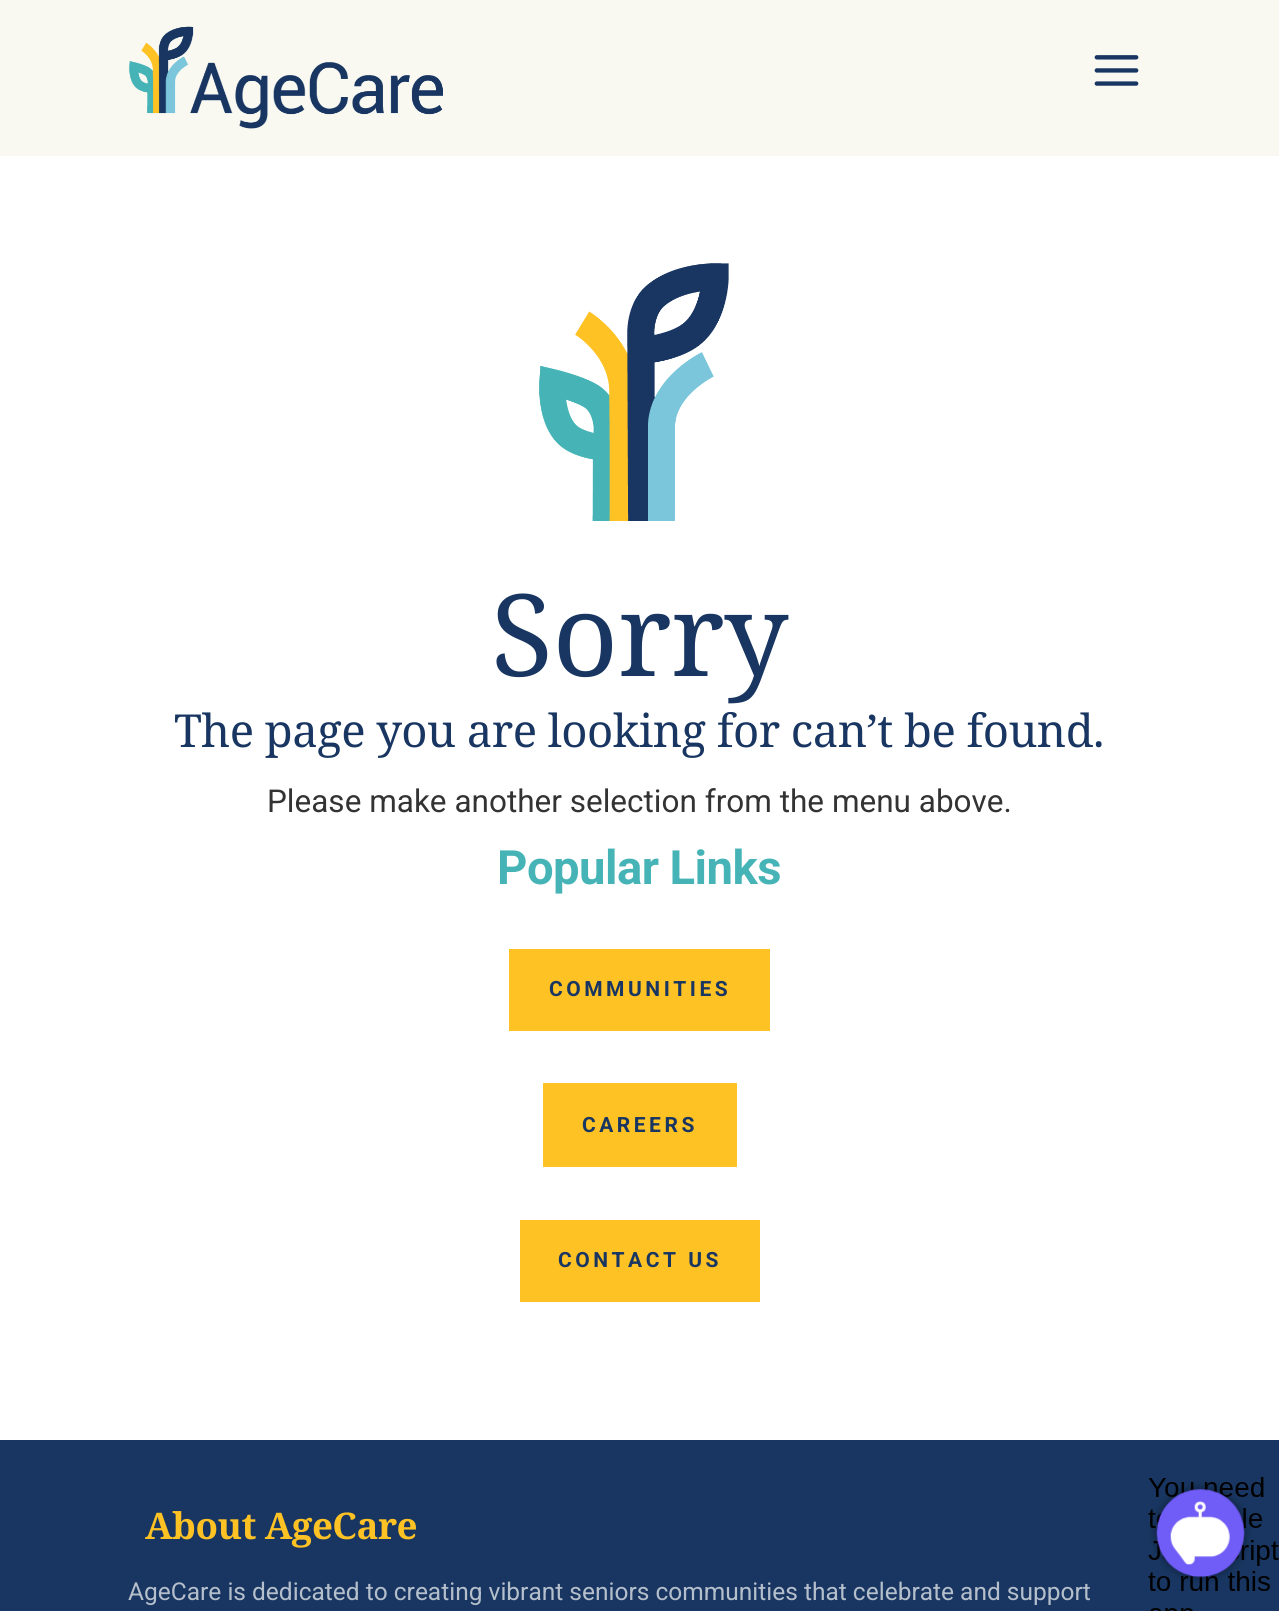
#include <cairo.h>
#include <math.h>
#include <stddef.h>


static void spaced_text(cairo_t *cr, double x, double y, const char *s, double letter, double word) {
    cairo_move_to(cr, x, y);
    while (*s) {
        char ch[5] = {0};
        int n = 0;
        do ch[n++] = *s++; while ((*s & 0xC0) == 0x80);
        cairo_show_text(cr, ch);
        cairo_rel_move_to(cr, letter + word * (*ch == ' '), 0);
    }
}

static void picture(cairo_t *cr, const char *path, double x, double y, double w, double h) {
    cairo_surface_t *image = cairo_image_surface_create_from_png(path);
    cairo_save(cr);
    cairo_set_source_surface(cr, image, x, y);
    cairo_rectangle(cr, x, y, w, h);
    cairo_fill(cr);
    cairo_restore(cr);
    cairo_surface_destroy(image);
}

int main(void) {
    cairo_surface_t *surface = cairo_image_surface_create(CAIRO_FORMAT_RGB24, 1279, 1611);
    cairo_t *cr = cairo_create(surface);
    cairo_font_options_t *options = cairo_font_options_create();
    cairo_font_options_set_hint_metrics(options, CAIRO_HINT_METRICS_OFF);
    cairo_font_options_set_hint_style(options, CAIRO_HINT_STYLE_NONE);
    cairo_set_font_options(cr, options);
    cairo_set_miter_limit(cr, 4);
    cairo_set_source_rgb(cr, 1, 1, 1);
    cairo_paint(cr);
    cairo_set_source_rgb(cr, 0.973, 0.973, 0.949);
    cairo_rectangle(cr, 0, 0, 1279, 156);
    cairo_fill(cr);
    picture(cr, "img1.png", 129, 26, 314, 103);
    picture(cr, "img2.png", 1094, 55, 45, 31);
    picture(cr, "img3.png", 539, 263, 190, 258);
    cairo_select_font_face(cr, "Noto Serif", CAIRO_FONT_SLANT_NORMAL, CAIRO_FONT_WEIGHT_NORMAL);
    cairo_set_font_size(cr, 114);
    cairo_set_source_rgb(cr, 0.094, 0.212, 0.38);
    spaced_text(cr, 491, 676, "Sorry", -0.55, 0);
    cairo_set_font_size(cr, 45.5);
    spaced_text(cr, 174, 747, "The page you are looking for can’t be found.", -0.55, 0);
    cairo_select_font_face(cr, "Roboto", CAIRO_FONT_SLANT_NORMAL, CAIRO_FONT_WEIGHT_NORMAL);
    cairo_set_font_size(cr, 31.5);
    cairo_set_source_rgb(cr, 0.2, 0.2, 0.2);
    cairo_move_to(cr, 267, 812);
    cairo_show_text(cr, "Please make another selection from the menu above.");
    cairo_select_font_face(cr, "Roboto", CAIRO_FONT_SLANT_NORMAL, CAIRO_FONT_WEIGHT_BOLD);
    cairo_set_font_size(cr, 47.25);
    cairo_set_source_rgb(cr, 0.275, 0.706, 0.718);
    spaced_text(cr, 497, 884, "Popular Links", -0.55, 0);
    cairo_set_source_rgb(cr, 0.996, 0.761, 0.141);
    cairo_rectangle(cr, 509, 949, 261, 82);
    cairo_fill(cr);
    cairo_set_font_size(cr, 21);
    cairo_set_source_rgb(cr, 0.094, 0.212, 0.38);
    spaced_text(cr, 549, 996, "COMMUNITIES", 3.5, 0);
    cairo_set_source_rgb(cr, 0.996, 0.761, 0.141);
    cairo_rectangle(cr, 543, 1083, 194, 84);
    cairo_fill(cr);
    cairo_set_source_rgb(cr, 0.094, 0.212, 0.38);
    spaced_text(cr, 582, 1132, "CAREERS", 3.5, 0);
    cairo_set_source_rgb(cr, 0.996, 0.761, 0.141);
    cairo_rectangle(cr, 520, 1220, 240, 82);
    cairo_fill(cr);
    cairo_set_source_rgb(cr, 0.094, 0.212, 0.38);
    spaced_text(cr, 558, 1267, "CONTACT US", 3.5, 0);
    cairo_rectangle(cr, 0, 1440, 1279, 171);
    cairo_fill(cr);
    cairo_select_font_face(cr, "Noto Serif", CAIRO_FONT_SLANT_NORMAL, CAIRO_FONT_WEIGHT_BOLD);
    cairo_set_font_size(cr, 36.75);
    cairo_set_source_rgb(cr, 0.996, 0.761, 0.141);
    spaced_text(cr, 145, 1539, "About AgeCare", -0.55, 0);
    cairo_select_font_face(cr, "Roboto", CAIRO_FONT_SLANT_NORMAL, CAIRO_FONT_WEIGHT_NORMAL);
    cairo_set_font_size(cr, 24.5);
    cairo_set_source_rgb(cr, 0.71, 0.749, 0.8);
    cairo_move_to(cr, 128, 1600);
    cairo_show_text(cr, "AgeCare is dedicated to creating vibrant seniors communities that celebrate and support");
    picture(cr, "img4.png", 1148, 1477, 131, 134);
    cairo_surface_write_to_png(surface, "page.png");
    cairo_font_options_destroy(options);
    cairo_destroy(cr);
    cairo_surface_destroy(surface);
    return 0;
}
